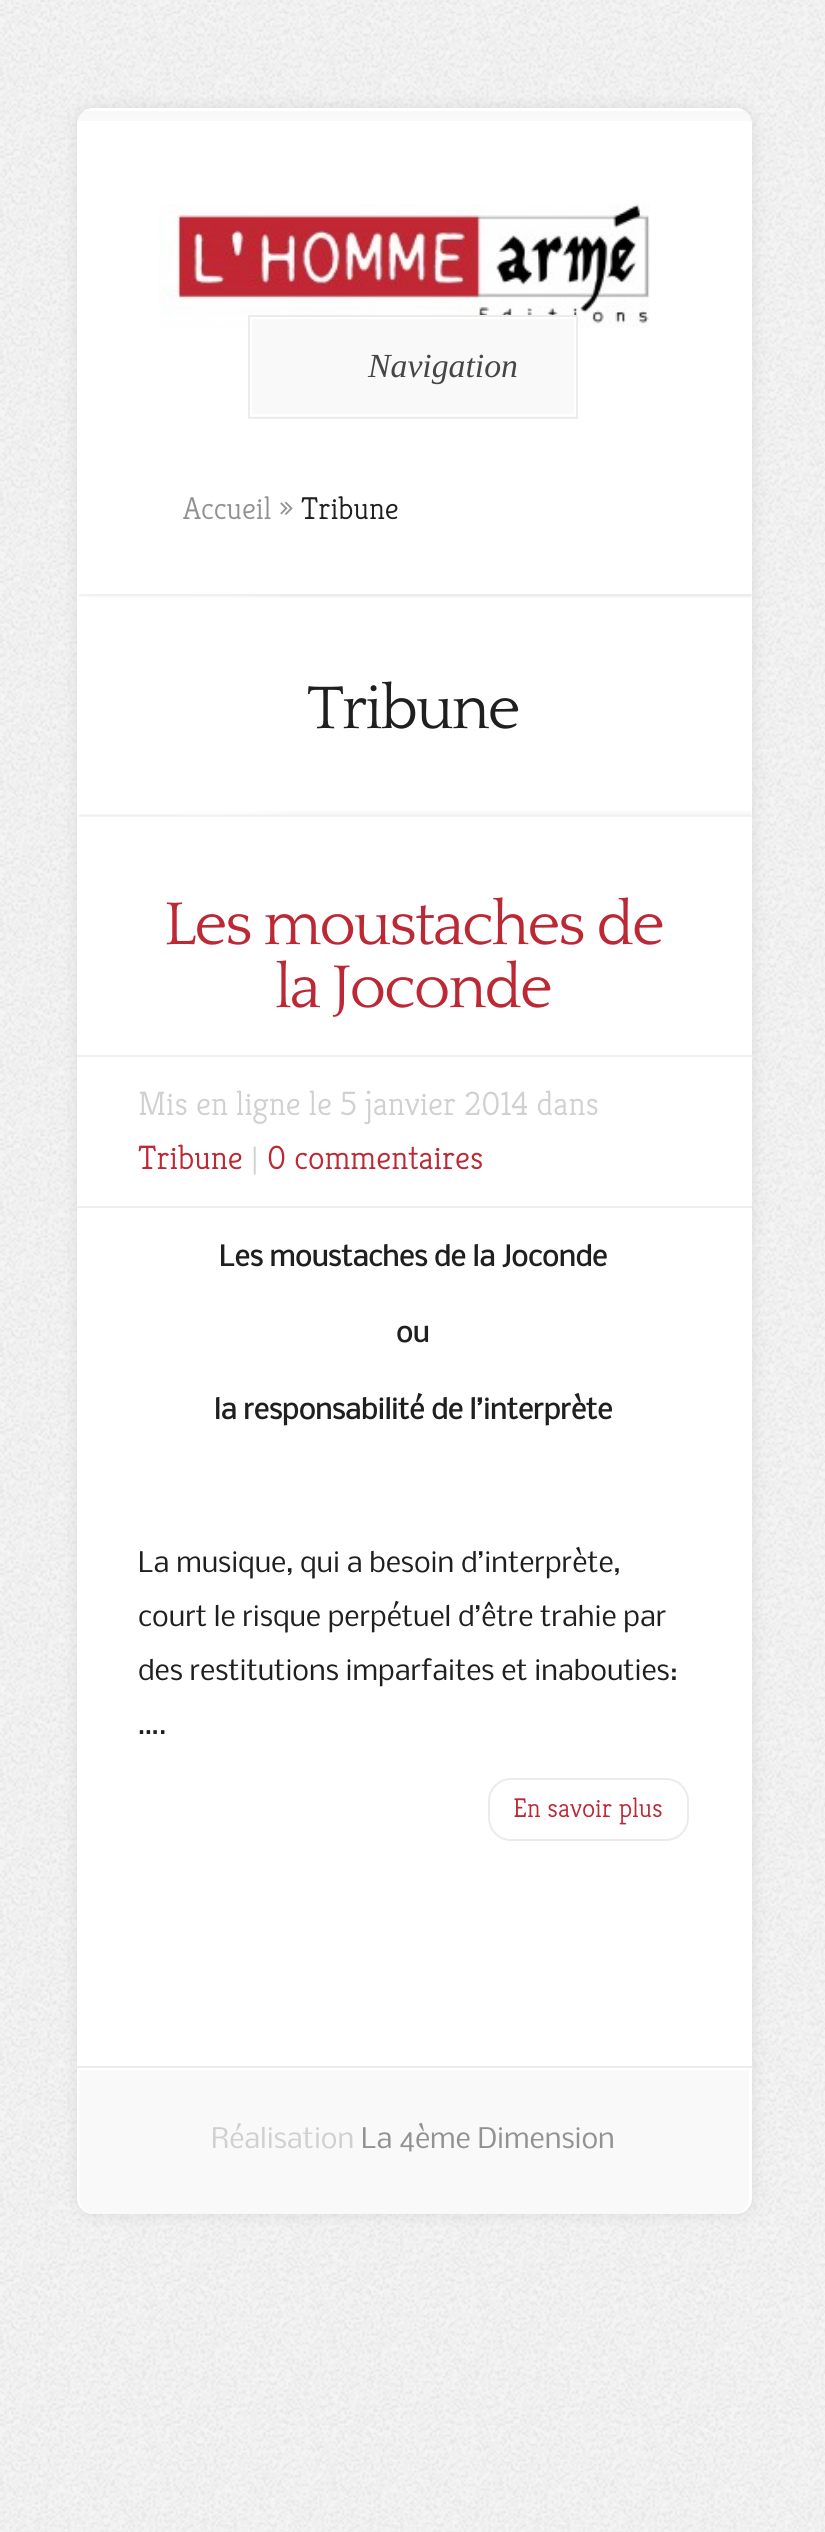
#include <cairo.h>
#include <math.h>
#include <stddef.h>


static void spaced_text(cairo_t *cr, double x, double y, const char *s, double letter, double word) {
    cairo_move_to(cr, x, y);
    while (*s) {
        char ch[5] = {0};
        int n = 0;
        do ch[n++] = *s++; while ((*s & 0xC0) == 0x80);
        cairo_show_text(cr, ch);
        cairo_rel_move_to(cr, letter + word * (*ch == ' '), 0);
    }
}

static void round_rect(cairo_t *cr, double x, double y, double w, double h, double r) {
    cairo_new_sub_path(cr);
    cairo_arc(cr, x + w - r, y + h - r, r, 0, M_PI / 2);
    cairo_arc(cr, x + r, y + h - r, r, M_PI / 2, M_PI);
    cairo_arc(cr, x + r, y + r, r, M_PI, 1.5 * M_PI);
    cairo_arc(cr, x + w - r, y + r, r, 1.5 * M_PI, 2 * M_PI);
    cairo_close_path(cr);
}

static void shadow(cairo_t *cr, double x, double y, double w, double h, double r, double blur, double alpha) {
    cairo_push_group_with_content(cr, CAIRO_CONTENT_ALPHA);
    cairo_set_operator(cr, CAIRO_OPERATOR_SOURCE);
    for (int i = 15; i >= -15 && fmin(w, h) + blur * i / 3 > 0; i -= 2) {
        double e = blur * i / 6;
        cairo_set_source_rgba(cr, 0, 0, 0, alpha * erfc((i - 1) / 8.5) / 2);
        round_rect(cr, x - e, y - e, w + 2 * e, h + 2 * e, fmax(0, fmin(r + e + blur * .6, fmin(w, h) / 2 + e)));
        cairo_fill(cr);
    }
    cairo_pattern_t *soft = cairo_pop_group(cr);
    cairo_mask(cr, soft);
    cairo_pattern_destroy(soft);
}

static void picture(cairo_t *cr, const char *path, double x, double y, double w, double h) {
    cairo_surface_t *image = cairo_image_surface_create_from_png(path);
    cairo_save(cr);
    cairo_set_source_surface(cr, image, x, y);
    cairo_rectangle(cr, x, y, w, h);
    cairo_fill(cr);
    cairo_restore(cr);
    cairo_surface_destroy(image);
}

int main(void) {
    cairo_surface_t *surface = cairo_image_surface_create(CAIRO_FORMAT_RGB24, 825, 2532);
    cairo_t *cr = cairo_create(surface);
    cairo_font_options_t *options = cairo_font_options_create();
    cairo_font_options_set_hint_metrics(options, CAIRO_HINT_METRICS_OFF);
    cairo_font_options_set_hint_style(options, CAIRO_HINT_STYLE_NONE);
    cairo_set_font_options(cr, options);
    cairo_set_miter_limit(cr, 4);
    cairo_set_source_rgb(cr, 0.957, 0.957, 0.957);
    cairo_paint(cr);
    picture(cr, "img1.png", 0, 0, 825, 2532);
    cairo_set_source_rgb(cr, 0, 0, 0);
    shadow(cr, 77, 108, 675, 2106, 16, 7, 0.1);
    cairo_set_source_rgb(cr, 1, 1, 1);
    round_rect(cr, 77, 108, 675, 2106, 16);
    cairo_fill(cr);
    picture(cr, "img2.png", 77, 111, 674, 10);
    picture(cr, "img3.png", 159, 204, 491, 124);
    cairo_set_source_rgb(cr, 0.976, 0.976, 0.976);
    cairo_rectangle(cr, 250, 319, 326, 98);
    cairo_fill(cr);
    cairo_rectangle(cr, 251, 318, 324, 97);
    cairo_set_source_rgb(cr, 1, 1, 1);
    cairo_stroke(cr);
    cairo_rectangle(cr, 249, 316, 328, 102);
    cairo_set_source_rgb(cr, 0.925, 0.925, 0.925);
    cairo_stroke(cr);
    cairo_select_font_face(cr, "Liberation Serif", CAIRO_FONT_SLANT_ITALIC, CAIRO_FONT_WEIGHT_NORMAL);
    cairo_set_font_size(cr, 33.75);
    cairo_set_source_rgb(cr, 0.275, 0.275, 0.275);
    cairo_move_to(cr, 368, 377);
    cairo_show_text(cr, "Navigation");
    cairo_select_font_face(cr, "Kreon Light", CAIRO_FONT_SLANT_NORMAL, CAIRO_FONT_WEIGHT_NORMAL);
    cairo_set_font_size(cr, 31.5);
    cairo_set_source_rgb(cr, 0.573, 0.573, 0.573);
    cairo_move_to(cr, 183, 519);
    cairo_show_text(cr, "Accueil »");
    cairo_set_source_rgb(cr, 0.125, 0.122, 0.122);
    cairo_move_to(cr, 301, 519);
    cairo_show_text(cr, "Tribune");
    picture(cr, "img4.png", 78, 594, 674, 4);
    picture(cr, "img5.png", 78, 811, 674, 6);
    cairo_select_font_face(cr, "Quattrocento", CAIRO_FONT_SLANT_NORMAL, CAIRO_FONT_WEIGHT_NORMAL);
    cairo_set_font_size(cr, 63);
    spaced_text(cr, 307, 728, "Tribune", -2.25, 0);
    cairo_set_source_rgb(cr, 0.737, 0.157, 0.204);
    spaced_text(cr, 164, 944, "Les moustaches de", -2.25, 0);
    spaced_text(cr, 275, 1007, "la Joconde", -2.25, 0);
    cairo_set_source_rgb(cr, 0.941, 0.941, 0.941);
    cairo_rectangle(cr, 77, 1055, 675, 2);
    cairo_fill(cr);
    cairo_rectangle(cr, 77, 1206, 675, 2);
    cairo_fill(cr);
    cairo_select_font_face(cr, "Kreon Light", CAIRO_FONT_SLANT_NORMAL, CAIRO_FONT_WEIGHT_NORMAL);
    cairo_set_font_size(cr, 33.75);
    cairo_set_source_rgb(cr, 0.816, 0.816, 0.816);
    cairo_move_to(cr, 138, 1115);
    cairo_show_text(cr, "Mis en ligne le 5 janvier 2014 dans");
    cairo_set_source_rgb(cr, 0.737, 0.157, 0.204);
    cairo_move_to(cr, 138, 1169);
    cairo_show_text(cr, "Tribune");
    cairo_set_source_rgb(cr, 0.816, 0.816, 0.816);
    cairo_move_to(cr, 251, 1169);
    cairo_show_text(cr, "|");
    cairo_set_source_rgb(cr, 0.737, 0.157, 0.204);
    cairo_move_to(cr, 267, 1169);
    cairo_show_text(cr, "0 commentaires");
    cairo_select_font_face(cr, "Nobile", CAIRO_FONT_SLANT_NORMAL, CAIRO_FONT_WEIGHT_BOLD);
    cairo_set_font_size(cr, 27);
    cairo_set_source_rgb(cr, 0.125, 0.122, 0.122);
    cairo_move_to(cr, 219, 1266);
    cairo_show_text(cr, "Les moustaches de la Joconde");
    cairo_move_to(cr, 396, 1342);
    cairo_show_text(cr, "ou");
    cairo_move_to(cr, 214, 1419);
    cairo_show_text(cr, "la responsabilité de l’interprète");
    cairo_select_font_face(cr, "Nobile", CAIRO_FONT_SLANT_NORMAL, CAIRO_FONT_WEIGHT_NORMAL);
    cairo_move_to(cr, 138, 1572);
    cairo_show_text(cr, "La musique, qui a besoin d’interprète,");
    cairo_move_to(cr, 138, 1626);
    cairo_show_text(cr, "court le risque perpétuel d’être trahie par");
    cairo_move_to(cr, 138, 1680);
    cairo_show_text(cr, "des restitutions imparfaites et inabouties:");
    cairo_move_to(cr, 138, 1734);
    cairo_show_text(cr, "….");
    round_rect(cr, 489, 1779, 199, 61, 22);
    cairo_set_source_rgb(cr, 0.918, 0.918, 0.918);
    cairo_stroke(cr);
    cairo_select_font_face(cr, "Kreon Light", CAIRO_FONT_SLANT_NORMAL, CAIRO_FONT_WEIGHT_NORMAL);
    cairo_set_source_rgb(cr, 0.737, 0.157, 0.204);
    cairo_move_to(cr, 513, 1817);
    cairo_show_text(cr, "En savoir plus");
    cairo_set_source_rgb(cr, 0.925, 0.925, 0.925);
    cairo_rectangle(cr, 77, 2066, 675, 2);
    cairo_fill(cr);
    cairo_set_source_rgb(cr, 0.976, 0.976, 0.976);
    cairo_new_path(cr);
    cairo_move_to(cr, 79, 2070);
    cairo_line_to(cr, 749, 2070);
    cairo_line_to(cr, 749, 2198);
    cairo_curve_to(cr, 749, 2207, 742, 2214, 733, 2214);
    cairo_line_to(cr, 95, 2214);
    cairo_curve_to(cr, 86, 2214, 79, 2207, 79, 2198);
    cairo_close_path(cr);
    cairo_fill(cr);
    cairo_select_font_face(cr, "Nobile", CAIRO_FONT_SLANT_NORMAL, CAIRO_FONT_WEIGHT_NORMAL);
    cairo_set_source_rgb(cr, 0.816, 0.816, 0.816);
    cairo_move_to(cr, 211, 2148);
    cairo_show_text(cr, "Réalisation");
    cairo_set_source_rgb(cr, 0.573, 0.573, 0.573);
    cairo_move_to(cr, 361, 2148);
    cairo_show_text(cr, "La 4ème Dimension");
    cairo_surface_write_to_png(surface, "page.png");
    cairo_font_options_destroy(options);
    cairo_destroy(cr);
    cairo_surface_destroy(surface);
    return 0;
}
